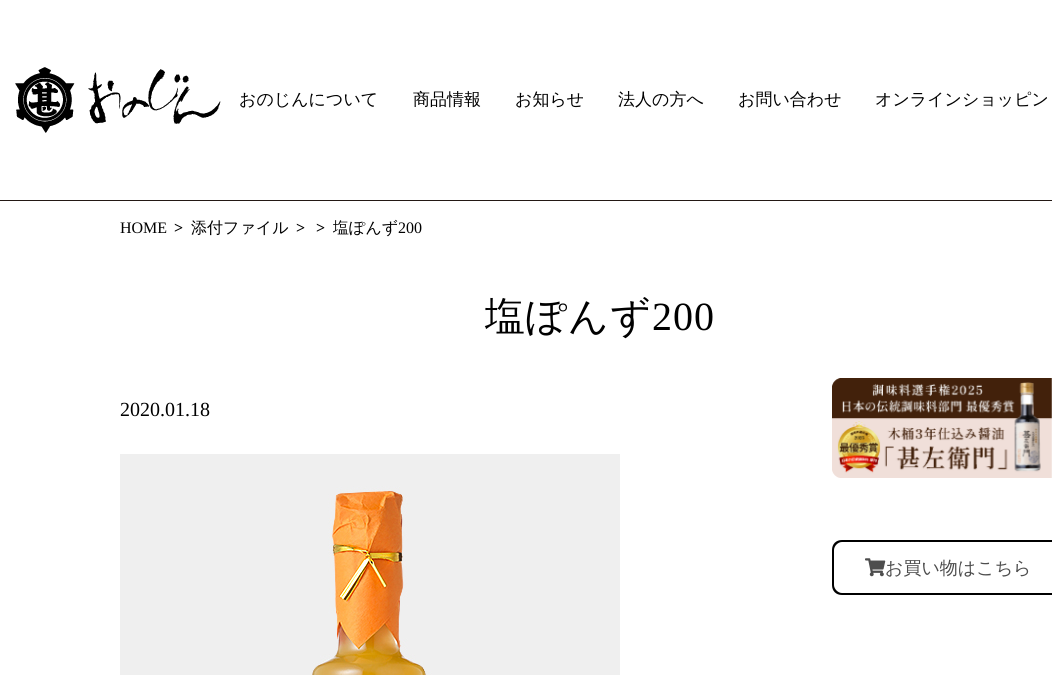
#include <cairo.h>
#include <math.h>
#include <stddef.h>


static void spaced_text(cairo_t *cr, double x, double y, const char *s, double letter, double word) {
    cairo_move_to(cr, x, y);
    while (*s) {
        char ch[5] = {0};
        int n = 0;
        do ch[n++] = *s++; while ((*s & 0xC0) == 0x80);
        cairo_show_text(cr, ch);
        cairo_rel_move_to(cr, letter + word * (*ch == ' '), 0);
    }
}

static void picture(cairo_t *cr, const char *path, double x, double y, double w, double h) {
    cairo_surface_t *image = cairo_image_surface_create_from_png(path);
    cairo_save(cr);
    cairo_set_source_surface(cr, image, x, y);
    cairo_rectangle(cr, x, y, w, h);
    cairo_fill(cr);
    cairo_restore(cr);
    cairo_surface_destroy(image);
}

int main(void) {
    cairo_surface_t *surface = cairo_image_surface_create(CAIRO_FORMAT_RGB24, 1052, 675);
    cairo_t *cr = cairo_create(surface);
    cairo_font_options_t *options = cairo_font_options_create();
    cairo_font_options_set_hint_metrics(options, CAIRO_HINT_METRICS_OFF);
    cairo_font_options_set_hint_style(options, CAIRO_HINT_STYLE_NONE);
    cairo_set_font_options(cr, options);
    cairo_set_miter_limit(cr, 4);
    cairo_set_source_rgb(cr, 1, 1, 1);
    cairo_paint(cr);
    picture(cr, "img1.png", 15, 67, 206, 66);
    cairo_select_font_face(cr, "WenQuanYi Zen Hei Medium", CAIRO_FONT_SLANT_NORMAL, CAIRO_FONT_WEIGHT_NORMAL);
    cairo_set_font_size(cr, 17);
    cairo_set_source_rgb(cr, 0, 0, 0);
    cairo_move_to(cr, 239, 105);
    cairo_show_text(cr, "おのじんについて");
    cairo_move_to(cr, 413, 105);
    cairo_show_text(cr, "商品情報");
    cairo_move_to(cr, 515, 105);
    cairo_show_text(cr, "お知らせ");
    cairo_move_to(cr, 618, 105);
    cairo_show_text(cr, "法人の方へ");
    cairo_move_to(cr, 738, 105);
    cairo_show_text(cr, "お問い合わせ");
    cairo_move_to(cr, 875, 105);
    cairo_show_text(cr, "オンラインショッピン");
    picture(cr, "img2.png", 832, 378, 220, 100);
    cairo_set_source_rgb(cr, 0.137, 0.094, 0.082);
    cairo_rectangle(cr, 0, 200, 1052, 1);
    cairo_fill(cr);
    cairo_select_font_face(cr, "Liberation Serif", CAIRO_FONT_SLANT_NORMAL, CAIRO_FONT_WEIGHT_NORMAL);
    cairo_set_font_size(cr, 16);
    cairo_set_source_rgb(cr, 0, 0, 0);
    cairo_move_to(cr, 120, 233);
    cairo_show_text(cr, "HOME");
    cairo_select_font_face(cr, "Liberation Serif", CAIRO_FONT_SLANT_NORMAL, CAIRO_FONT_WEIGHT_BOLD);
    cairo_move_to(cr, 174, 233);
    cairo_show_text(cr, ">");
    cairo_select_font_face(cr, "WenQuanYi Zen Hei Medium", CAIRO_FONT_SLANT_NORMAL, CAIRO_FONT_WEIGHT_NORMAL);
    cairo_move_to(cr, 191, 233);
    cairo_show_text(cr, "添付ファイル");
    cairo_select_font_face(cr, "Liberation Serif", CAIRO_FONT_SLANT_NORMAL, CAIRO_FONT_WEIGHT_BOLD);
    cairo_move_to(cr, 296, 233);
    cairo_show_text(cr, ">");
    cairo_move_to(cr, 316, 233);
    cairo_show_text(cr, ">");
    cairo_select_font_face(cr, "WenQuanYi Zen Hei Medium", CAIRO_FONT_SLANT_NORMAL, CAIRO_FONT_WEIGHT_NORMAL);
    cairo_move_to(cr, 333, 233);
    cairo_show_text(cr, "塩ぽんず");
    cairo_select_font_face(cr, "Liberation Serif", CAIRO_FONT_SLANT_NORMAL, CAIRO_FONT_WEIGHT_NORMAL);
    cairo_move_to(cr, 398, 233);
    cairo_show_text(cr, "200");
    cairo_select_font_face(cr, "WenQuanYi Zen Hei Medium", CAIRO_FONT_SLANT_NORMAL, CAIRO_FONT_WEIGHT_NORMAL);
    cairo_set_font_size(cr, 40);
    spaced_text(cr, 485, 330, "塩ぽんず", 1, 0);
    cairo_select_font_face(cr, "Liberation Serif", CAIRO_FONT_SLANT_NORMAL, CAIRO_FONT_WEIGHT_NORMAL);
    spaced_text(cr, 652, 330, "200", 1, 0);
    cairo_set_font_size(cr, 20);
    cairo_move_to(cr, 120, 416);
    cairo_show_text(cr, "2020.01.18");
    picture(cr, "img3.png", 120, 454, 500, 221);
    cairo_set_fill_rule(cr, CAIRO_FILL_RULE_EVEN_ODD);
    cairo_new_path(cr);
    cairo_move_to(cr, 842, 540);
    cairo_line_to(cr, 1052, 540);
    cairo_line_to(cr, 1052, 595);
    cairo_line_to(cr, 842, 595);
    cairo_curve_to(cr, 836, 595, 832, 591, 832, 585);
    cairo_line_to(cr, 832, 550);
    cairo_curve_to(cr, 832, 544, 836, 540, 842, 540);
    cairo_close_path(cr);
    cairo_move_to(cr, 842, 542);
    cairo_line_to(cr, 1052, 542);
    cairo_line_to(cr, 1052, 593);
    cairo_line_to(cr, 842, 593);
    cairo_curve_to(cr, 838, 593, 834, 589, 834, 585);
    cairo_line_to(cr, 834, 550);
    cairo_curve_to(cr, 834, 546, 838, 542, 842, 542);
    cairo_close_path(cr);
    cairo_fill(cr);
    picture(cr, "img4.png", 865, 558, 21, 19);
    cairo_select_font_face(cr, "WenQuanYi Zen Hei Medium", CAIRO_FONT_SLANT_NORMAL, CAIRO_FONT_WEIGHT_NORMAL);
    cairo_set_font_size(cr, 18);
    cairo_set_source_rgb(cr, 0.302, 0.302, 0.302);
    cairo_move_to(cr, 885, 574);
    cairo_show_text(cr, "お買い物はこちら");
    cairo_surface_write_to_png(surface, "page.png");
    cairo_font_options_destroy(options);
    cairo_destroy(cr);
    cairo_surface_destroy(surface);
    return 0;
}
